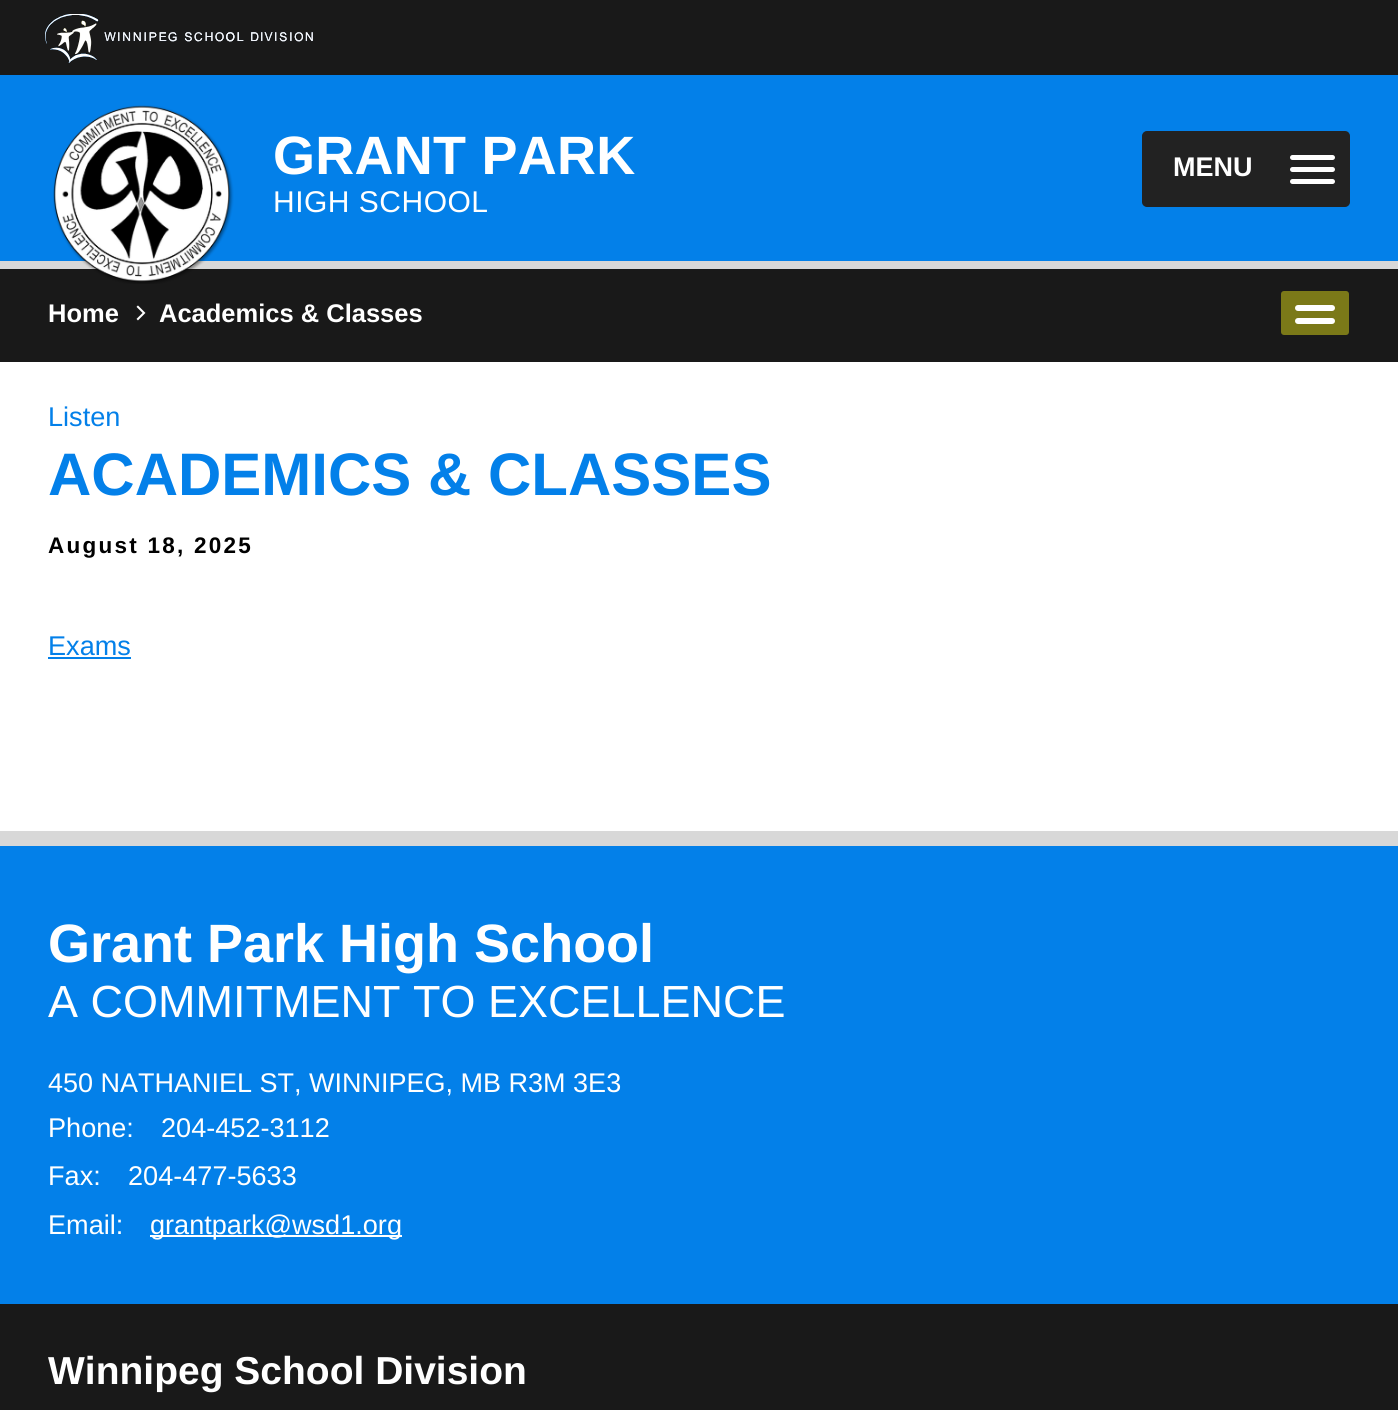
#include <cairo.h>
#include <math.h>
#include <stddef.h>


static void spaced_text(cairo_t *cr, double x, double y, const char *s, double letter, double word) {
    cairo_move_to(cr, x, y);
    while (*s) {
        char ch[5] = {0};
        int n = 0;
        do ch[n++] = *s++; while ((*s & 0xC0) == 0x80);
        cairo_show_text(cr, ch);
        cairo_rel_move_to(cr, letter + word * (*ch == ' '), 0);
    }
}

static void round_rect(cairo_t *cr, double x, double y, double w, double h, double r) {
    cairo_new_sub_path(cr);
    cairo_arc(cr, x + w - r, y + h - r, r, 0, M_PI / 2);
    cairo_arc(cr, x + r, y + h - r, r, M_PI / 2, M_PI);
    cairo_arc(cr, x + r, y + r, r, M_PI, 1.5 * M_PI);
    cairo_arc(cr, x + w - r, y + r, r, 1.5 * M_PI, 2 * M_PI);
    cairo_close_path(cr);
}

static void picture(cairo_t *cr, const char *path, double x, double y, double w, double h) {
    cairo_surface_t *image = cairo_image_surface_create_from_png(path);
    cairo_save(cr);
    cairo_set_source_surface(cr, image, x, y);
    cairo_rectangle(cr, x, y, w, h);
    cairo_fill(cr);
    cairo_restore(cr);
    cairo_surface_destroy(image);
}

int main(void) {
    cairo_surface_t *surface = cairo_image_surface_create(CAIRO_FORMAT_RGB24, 1398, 1410);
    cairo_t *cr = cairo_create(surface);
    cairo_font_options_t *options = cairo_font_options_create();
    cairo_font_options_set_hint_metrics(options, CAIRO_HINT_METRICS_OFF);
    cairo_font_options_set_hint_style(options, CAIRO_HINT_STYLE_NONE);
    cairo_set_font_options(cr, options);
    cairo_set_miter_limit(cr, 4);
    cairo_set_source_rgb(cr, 1, 1, 1);
    cairo_paint(cr);
    cairo_set_source_rgb(cr, 0.098, 0.098, 0.098);
    cairo_rectangle(cr, 0, 0, 1398, 75);
    cairo_fill(cr);
    picture(cr, "img1.png", 45, 14, 268, 49);
    cairo_set_source_rgb(cr, 0.012, 0.502, 0.914);
    cairo_rectangle(cr, 0, 75, 1398, 186);
    cairo_fill(cr);
    cairo_set_source_rgb(cr, 0.847, 0.847, 0.847);
    cairo_rectangle(cr, 0, 261, 1398, 8);
    cairo_fill(cr);
    cairo_set_source_rgb(cr, 0.098, 0.098, 0.098);
    cairo_rectangle(cr, 0, 269, 1398, 93);
    cairo_fill(cr);
    picture(cr, "img2.png", 53, 105, 181, 179);
    cairo_select_font_face(cr, "Liberation Sans", CAIRO_FONT_SLANT_NORMAL, CAIRO_FONT_WEIGHT_BOLD);
    cairo_set_font_size(cr, 54);
    cairo_set_source_rgb(cr, 1, 1, 1);
    spaced_text(cr, 273, 174, "GRANT PARK", 0.25, 0);
    cairo_select_font_face(cr, "Liberation Sans", CAIRO_FONT_SLANT_NORMAL, CAIRO_FONT_WEIGHT_NORMAL);
    cairo_set_font_size(cr, 30);
    spaced_text(cr, 273, 212, "HIGH SCHOOL", 0.5, 0);
    cairo_set_source_rgb(cr, 0.133, 0.133, 0.133);
    round_rect(cr, 1143, 132, 206, 74, 4);
    cairo_fill_preserve(cr);
    cairo_stroke(cr);
    cairo_select_font_face(cr, "Liberation Sans", CAIRO_FONT_SLANT_NORMAL, CAIRO_FONT_WEIGHT_BOLD);
    cairo_set_font_size(cr, 27);
    cairo_set_source_rgb(cr, 1, 1, 1);
    cairo_move_to(cr, 1173, 176);
    cairo_show_text(cr, "MENU");
    round_rect(cr, 1290, 155, 45, 5, 2.5);
    cairo_fill(cr);
    round_rect(cr, 1290, 167, 45, 5, 2.5);
    cairo_fill(cr);
    round_rect(cr, 1290, 179, 45, 5, 2.5);
    cairo_fill(cr);
    cairo_set_font_size(cr, 25.5);
    cairo_move_to(cr, 48, 322);
    cairo_show_text(cr, "Home");
    picture(cr, "img3.png", 136, 305, 10, 16);
    cairo_move_to(cr, 159, 322);
    cairo_show_text(cr, "Academics & Classes");
    cairo_set_source_rgb(cr, 0.482, 0.475, 0.094);
    round_rect(cr, 1281, 291, 68, 44, 3);
    cairo_fill(cr);
    cairo_set_source_rgb(cr, 1, 1, 1);
    round_rect(cr, 1295, 305, 40, 6, 3);
    cairo_fill(cr);
    round_rect(cr, 1295, 318, 40, 6, 3);
    cairo_fill(cr);
    cairo_select_font_face(cr, "Liberation Sans", CAIRO_FONT_SLANT_NORMAL, CAIRO_FONT_WEIGHT_NORMAL);
    cairo_set_font_size(cr, 27.1);
    cairo_set_source_rgb(cr, 0.012, 0.502, 0.914);
    cairo_move_to(cr, 48, 426);
    cairo_show_text(cr, "Listen");
    cairo_select_font_face(cr, "Liberation Sans", CAIRO_FONT_SLANT_NORMAL, CAIRO_FONT_WEIGHT_BOLD);
    cairo_set_font_size(cr, 60);
    cairo_move_to(cr, 48, 495);
    cairo_show_text(cr, "ACADEMICS & CLASSES");
    cairo_set_font_size(cr, 22.5);
    cairo_set_source_rgb(cr, 0, 0, 0);
    spaced_text(cr, 48, 553, "August 18, 2025", 2.25, 0);
    cairo_select_font_face(cr, "Liberation Sans", CAIRO_FONT_SLANT_NORMAL, CAIRO_FONT_WEIGHT_NORMAL);
    cairo_set_font_size(cr, 27.1);
    cairo_set_source_rgb(cr, 0.012, 0.502, 0.914);
    cairo_move_to(cr, 48, 655);
    cairo_show_text(cr, "Exams");
    cairo_rectangle(cr, 48, 657, 83, 2);
    cairo_fill(cr);
    cairo_rectangle(cr, 0, 846, 1398, 458);
    cairo_fill(cr);
    cairo_set_source_rgb(cr, 0.847, 0.847, 0.847);
    cairo_rectangle(cr, 0, 831, 1398, 15);
    cairo_fill(cr);
    cairo_select_font_face(cr, "Liberation Sans", CAIRO_FONT_SLANT_NORMAL, CAIRO_FONT_WEIGHT_BOLD);
    cairo_set_font_size(cr, 54);
    cairo_set_source_rgb(cr, 1, 1, 1);
    cairo_move_to(cr, 48, 962);
    cairo_show_text(cr, "Grant Park High School");
    cairo_select_font_face(cr, "Liberation Sans", CAIRO_FONT_SLANT_NORMAL, CAIRO_FONT_WEIGHT_NORMAL);
    cairo_set_font_size(cr, 45);
    cairo_move_to(cr, 48, 1017);
    cairo_show_text(cr, "A COMMITMENT TO EXCELLENCE");
    cairo_set_font_size(cr, 27);
    cairo_move_to(cr, 48, 1092);
    cairo_show_text(cr, "450 NATHANIEL ST, WINNIPEG, MB R3M 3E3");
    cairo_set_font_size(cr, 27.1);
    cairo_move_to(cr, 48, 1137);
    cairo_show_text(cr, "Phone:");
    cairo_move_to(cr, 161, 1137);
    cairo_show_text(cr, "204-452-3112");
    cairo_move_to(cr, 48, 1185);
    cairo_show_text(cr, "Fax:");
    cairo_move_to(cr, 128, 1185);
    cairo_show_text(cr, "204-477-5633");
    cairo_move_to(cr, 48, 1234);
    cairo_show_text(cr, "Email:");
    cairo_rectangle(cr, 150, 1235, 252, 2);
    cairo_fill(cr);
    cairo_move_to(cr, 150, 1234);
    cairo_show_text(cr, "grantpark@wsd1.org");
    cairo_set_source_rgb(cr, 0.098, 0.098, 0.098);
    cairo_rectangle(cr, 0, 1304, 1398, 106);
    cairo_fill(cr);
    cairo_select_font_face(cr, "Liberation Sans", CAIRO_FONT_SLANT_NORMAL, CAIRO_FONT_WEIGHT_BOLD);
    cairo_set_font_size(cr, 39);
    cairo_set_source_rgb(cr, 1, 1, 1);
    cairo_move_to(cr, 48, 1384);
    cairo_show_text(cr, "Winnipeg School Division");
    cairo_surface_write_to_png(surface, "page.png");
    cairo_font_options_destroy(options);
    cairo_destroy(cr);
    cairo_surface_destroy(surface);
    return 0;
}
